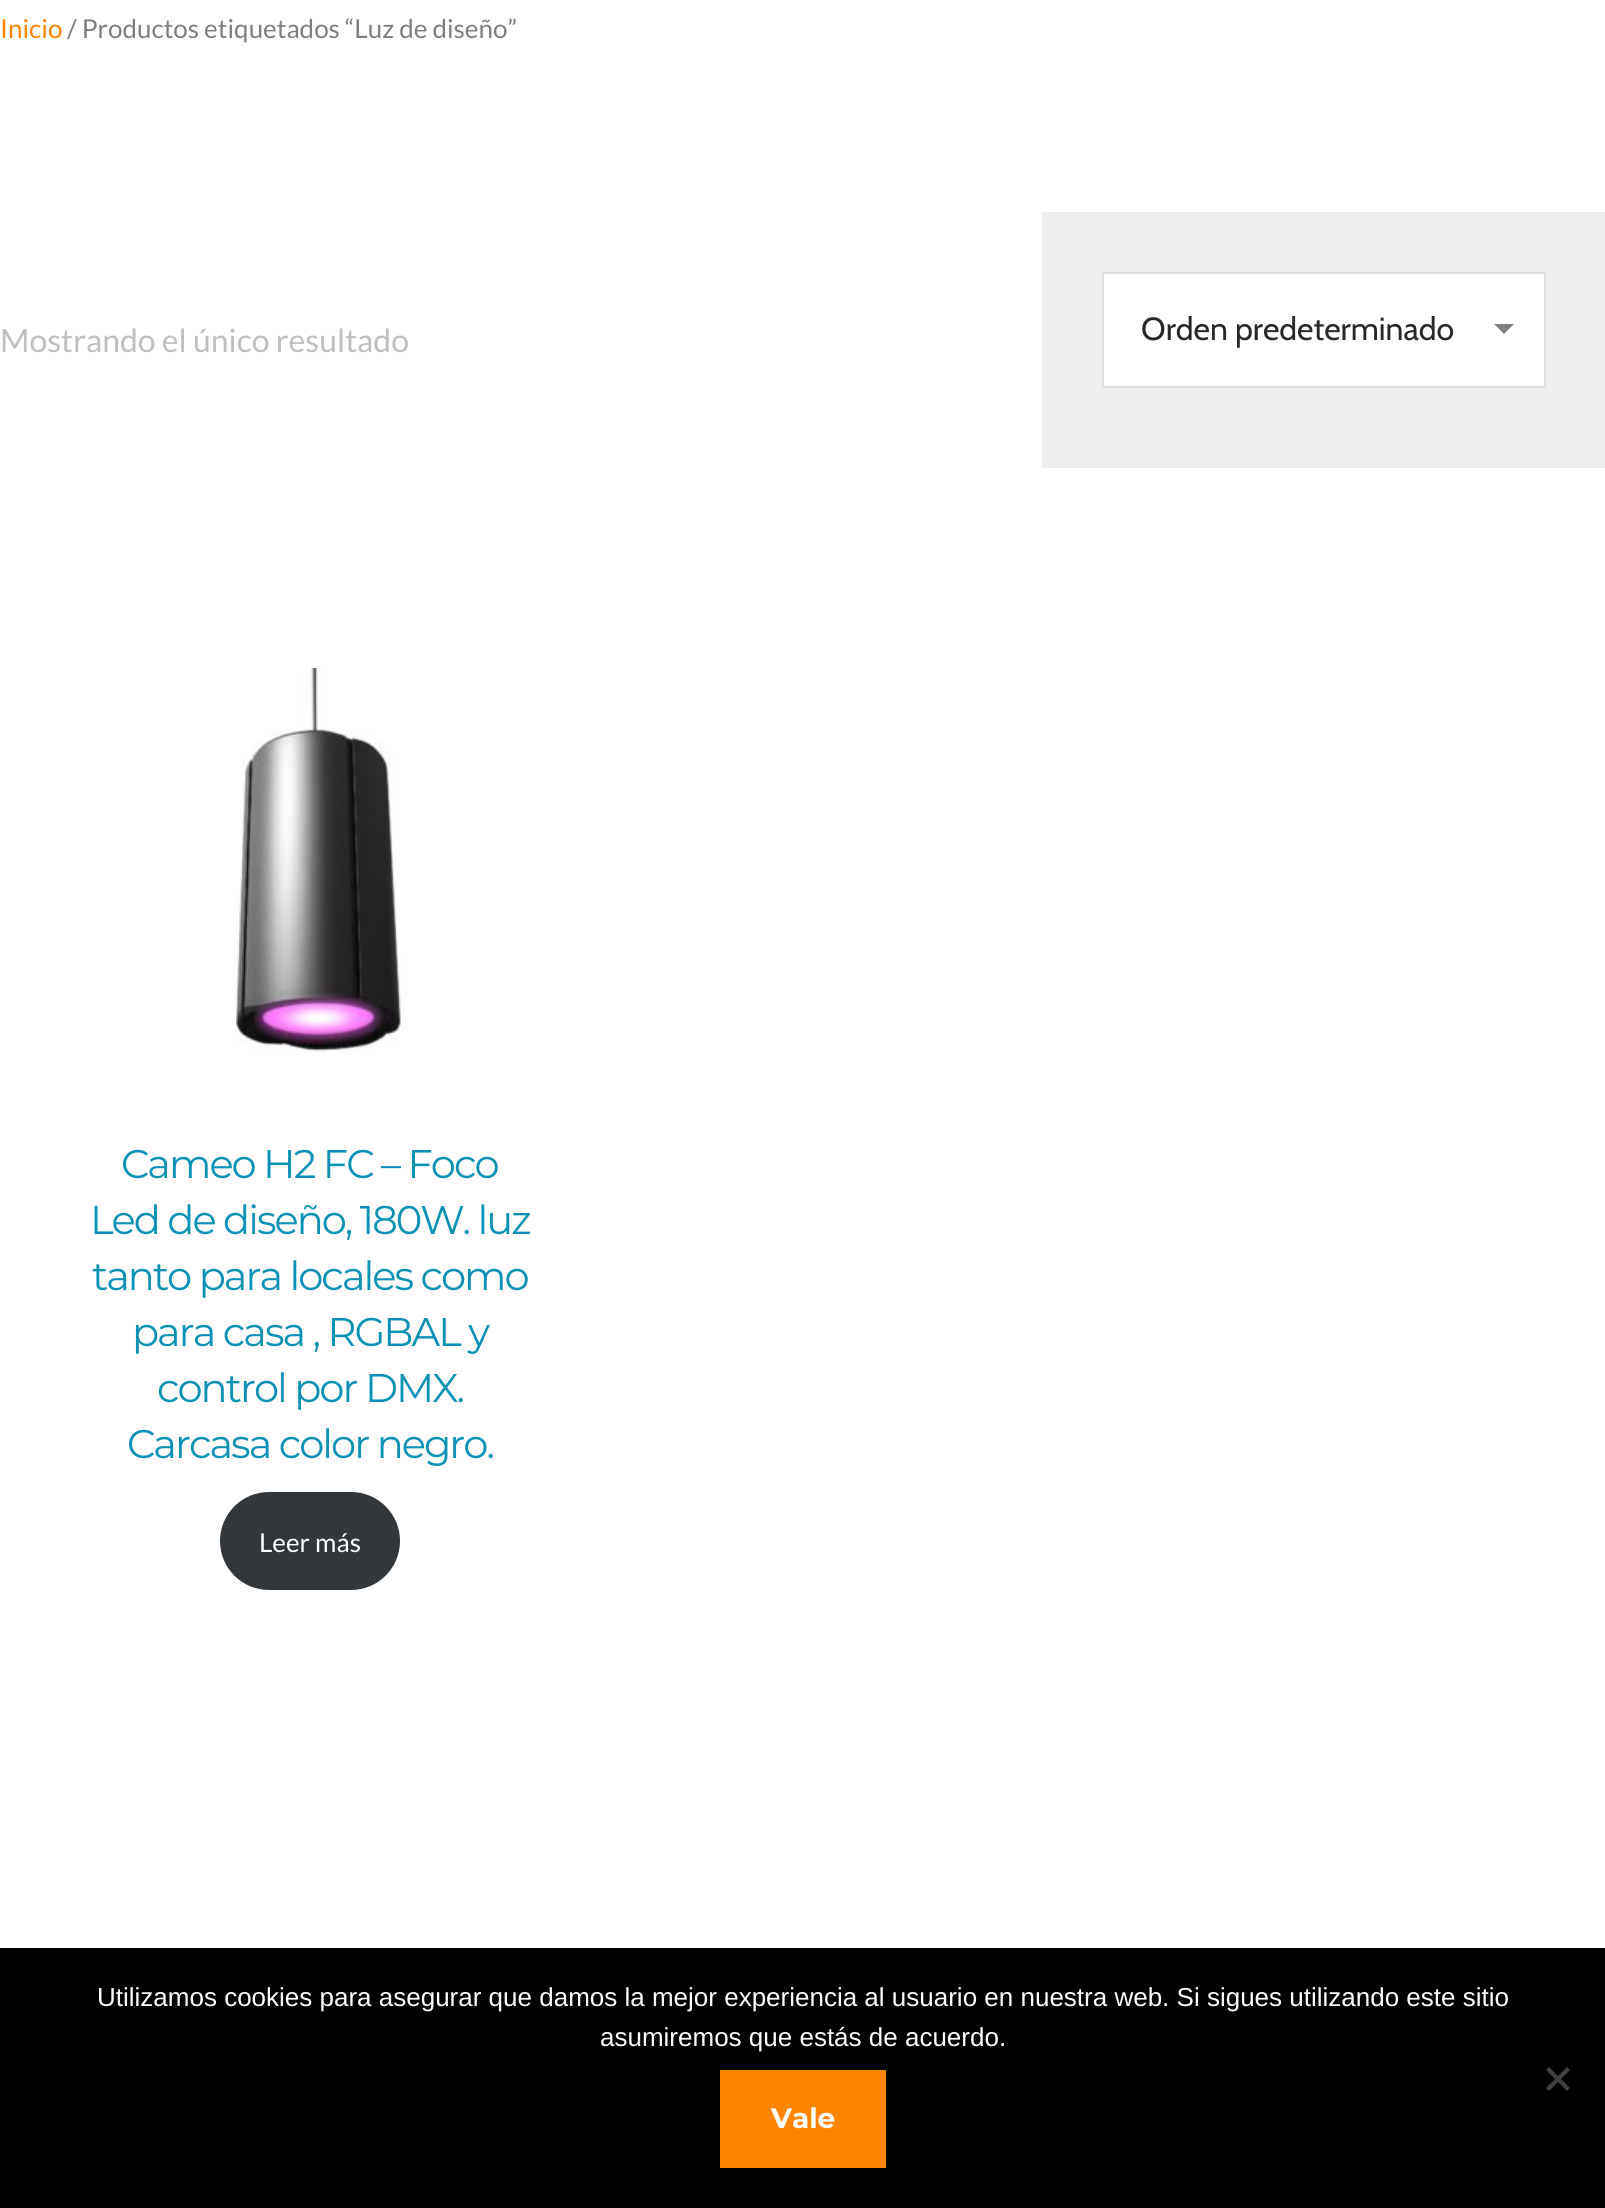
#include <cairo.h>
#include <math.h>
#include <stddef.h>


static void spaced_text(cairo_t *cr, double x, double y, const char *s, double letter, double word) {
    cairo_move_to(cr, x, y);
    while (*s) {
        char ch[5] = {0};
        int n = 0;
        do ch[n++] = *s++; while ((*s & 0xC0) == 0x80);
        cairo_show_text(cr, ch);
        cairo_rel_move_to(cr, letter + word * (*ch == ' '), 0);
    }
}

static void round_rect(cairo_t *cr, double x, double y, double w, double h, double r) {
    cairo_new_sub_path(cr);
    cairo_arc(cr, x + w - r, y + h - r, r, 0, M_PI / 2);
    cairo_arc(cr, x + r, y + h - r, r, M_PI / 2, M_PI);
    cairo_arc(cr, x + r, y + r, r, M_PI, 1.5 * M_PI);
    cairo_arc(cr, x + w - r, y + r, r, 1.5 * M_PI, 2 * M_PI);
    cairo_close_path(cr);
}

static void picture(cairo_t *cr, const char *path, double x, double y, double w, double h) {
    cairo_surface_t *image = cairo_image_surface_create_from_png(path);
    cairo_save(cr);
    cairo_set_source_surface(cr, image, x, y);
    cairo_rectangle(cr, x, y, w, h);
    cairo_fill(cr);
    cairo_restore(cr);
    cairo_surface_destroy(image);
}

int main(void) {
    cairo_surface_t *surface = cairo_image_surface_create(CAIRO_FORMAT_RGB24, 1605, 2208);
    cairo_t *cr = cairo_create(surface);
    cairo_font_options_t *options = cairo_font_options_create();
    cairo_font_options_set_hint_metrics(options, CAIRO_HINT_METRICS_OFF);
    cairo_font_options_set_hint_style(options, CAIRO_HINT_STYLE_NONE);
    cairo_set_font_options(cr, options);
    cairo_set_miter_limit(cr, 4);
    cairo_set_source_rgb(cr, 1, 1, 1);
    cairo_paint(cr);
    cairo_select_font_face(cr, "Lato", CAIRO_FONT_SLANT_NORMAL, CAIRO_FONT_WEIGHT_NORMAL);
    cairo_set_font_size(cr, 26);
    cairo_set_source_rgb(cr, 1, 0.522, 0);
    cairo_move_to(cr, 0, 38);
    cairo_show_text(cr, "Inicio");
    cairo_set_source_rgb(cr, 0.486, 0.494, 0.502);
    cairo_move_to(cr, 67, 38);
    cairo_show_text(cr, "/ Productos etiquetados “Luz de diseño”");
    cairo_set_font_size(cr, 32);
    cairo_set_source_rgb(cr, 0.749, 0.749, 0.749);
    cairo_move_to(cr, 0, 352);
    cairo_show_text(cr, "Mostrando el único resultado");
    cairo_set_source_rgb(cr, 0.933, 0.933, 0.933);
    cairo_rectangle(cr, 1042, 212, 563, 256);
    cairo_fill(cr);
    cairo_set_source_rgb(cr, 1, 1, 1);
    cairo_rectangle(cr, 1103, 273, 442, 114);
    cairo_fill_preserve(cr);
    cairo_set_source_rgb(cr, 0.871, 0.871, 0.871);
    cairo_stroke(cr);
    cairo_select_font_face(cr, "Cabin", CAIRO_FONT_SLANT_NORMAL, CAIRO_FONT_WEIGHT_NORMAL);
    cairo_set_source_rgb(cr, 0.157, 0.157, 0.157);
    cairo_move_to(cr, 1141, 340);
    cairo_show_text(cr, "Orden predeterminado");
    cairo_set_source_rgb(cr, 0.502, 0.502, 0.502);
    cairo_new_path(cr);
    cairo_move_to(cr, 1494, 324);
    cairo_line_to(cr, 1514, 324);
    cairo_line_to(cr, 1504, 334);
    cairo_close_path(cr);
    cairo_fill(cr);
    picture(cr, "img1.png", 233, 668, 175, 387);
    cairo_select_font_face(cr, "Montserrat", CAIRO_FONT_SLANT_NORMAL, CAIRO_FONT_WEIGHT_NORMAL);
    cairo_set_font_size(cr, 40);
    cairo_set_source_rgb(cr, 0.043, 0.569, 0.71);
    spaced_text(cr, 121, 1178, "Cameo H2 FC – Foco", -2, 0);
    spaced_text(cr, 90, 1234, "Led de diseño, 180W. luz", -2, 0);
    spaced_text(cr, 92, 1290, "tanto para locales como", -2, 0);
    spaced_text(cr, 132, 1346, "para casa , RGBAL y", -2, 0);
    spaced_text(cr, 157, 1402, "control por DMX.", -2, 0);
    spaced_text(cr, 127, 1458, "Carcasa color negro.", -2, 0);
    cairo_set_source_rgb(cr, 0.196, 0.216, 0.235);
    round_rect(cr, 220, 1492, 180, 98, 49);
    cairo_fill(cr);
    cairo_select_font_face(cr, "Lato", CAIRO_FONT_SLANT_NORMAL, CAIRO_FONT_WEIGHT_NORMAL);
    cairo_set_font_size(cr, 26);
    cairo_set_source_rgb(cr, 1, 1, 1);
    cairo_move_to(cr, 259, 1552);
    cairo_show_text(cr, "Leer más");
    cairo_set_source_rgb(cr, 0, 0, 0);
    cairo_rectangle(cr, 0, 1948, 1605, 260);
    cairo_fill(cr);
    cairo_select_font_face(cr, "Liberation Sans", CAIRO_FONT_SLANT_NORMAL, CAIRO_FONT_WEIGHT_NORMAL);
    cairo_set_source_rgb(cr, 1, 1, 1);
    cairo_move_to(cr, 97, 2006);
    cairo_show_text(cr, "Utilizamos cookies para asegurar que damos la mejor experiencia al usuario en nuestra web. Si sigues utilizando este sitio");
    cairo_move_to(cr, 600, 2046);
    cairo_show_text(cr, "asumiremos que estás de acuerdo.");
    cairo_set_source_rgb(cr, 0.251, 0.251, 0.251);
    cairo_new_path(cr);
    cairo_move_to(cr, 1567, 2067);
    cairo_line_to(cr, 1570, 2070);
    cairo_line_to(cr, 1549, 2091);
    cairo_line_to(cr, 1546, 2088);
    cairo_close_path(cr);
    cairo_fill(cr);
    cairo_new_path(cr);
    cairo_move_to(cr, 1546, 2070);
    cairo_line_to(cr, 1549, 2067);
    cairo_line_to(cr, 1570, 2088);
    cairo_line_to(cr, 1567, 2091);
    cairo_close_path(cr);
    cairo_fill(cr);
    cairo_set_source_rgb(cr, 1, 0.522, 0);
    cairo_rectangle(cr, 720, 2070, 166, 98);
    cairo_fill(cr);
    cairo_select_font_face(cr, "Montserrat", CAIRO_FONT_SLANT_NORMAL, CAIRO_FONT_WEIGHT_BOLD);
    cairo_set_font_size(cr, 28);
    cairo_set_source_rgb(cr, 1, 1, 1);
    cairo_move_to(cr, 771, 2128);
    cairo_show_text(cr, "Vale");
    cairo_surface_write_to_png(surface, "page.png");
    cairo_font_options_destroy(options);
    cairo_destroy(cr);
    cairo_surface_destroy(surface);
    return 0;
}
